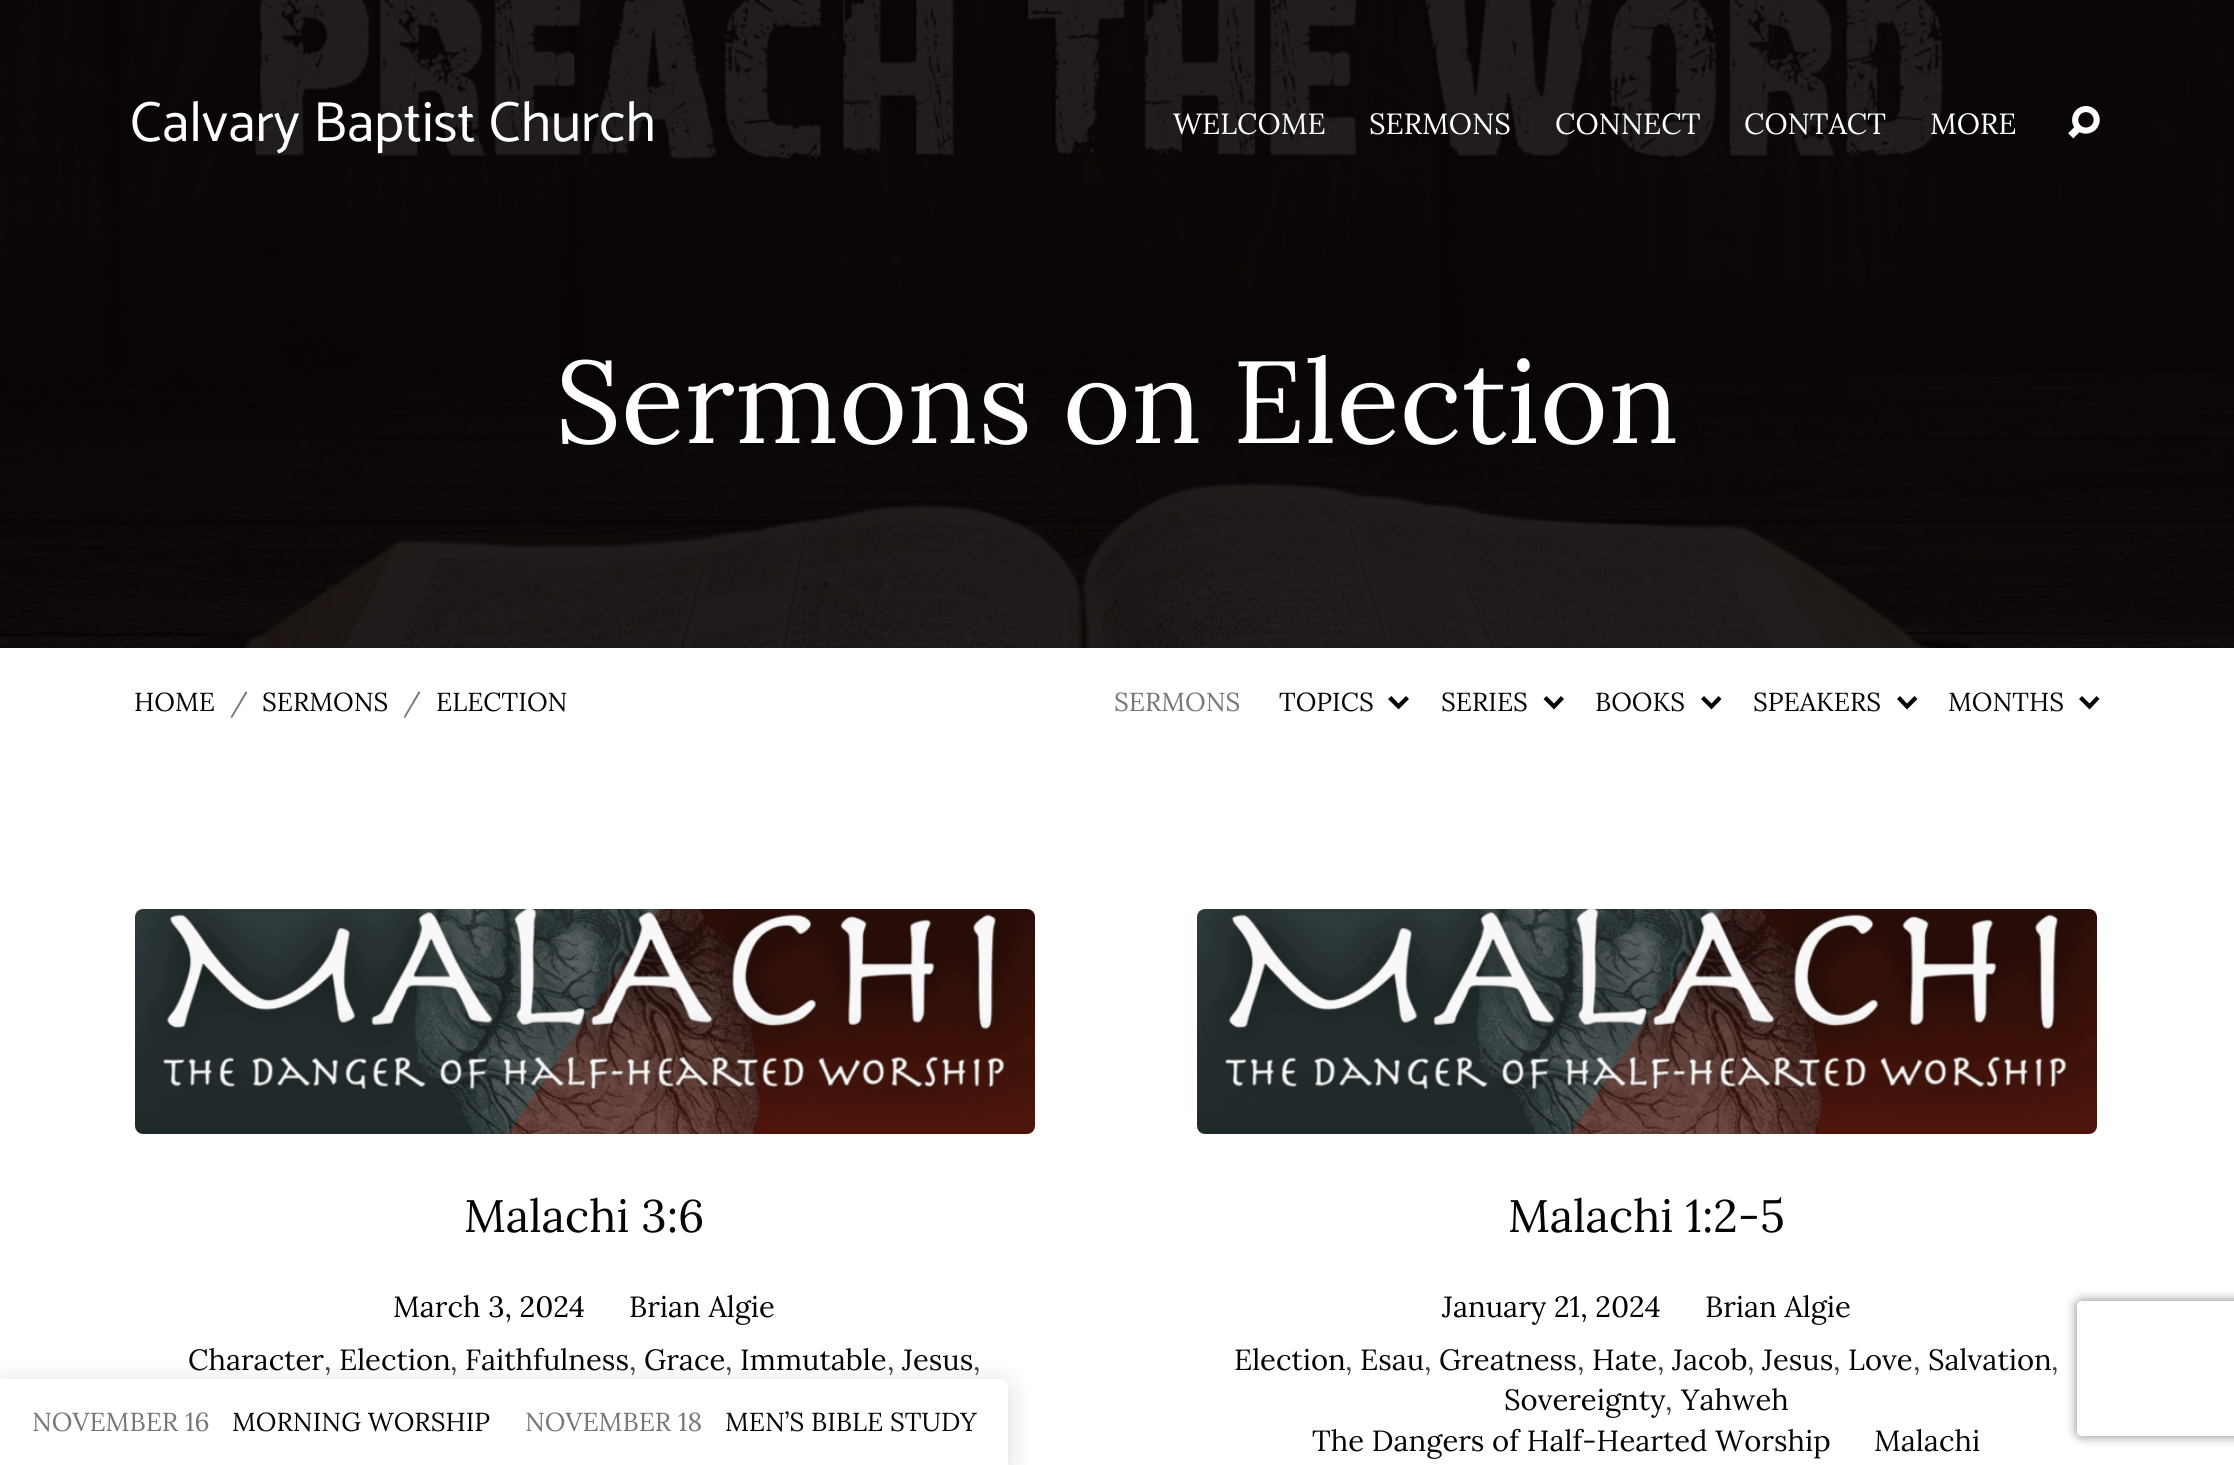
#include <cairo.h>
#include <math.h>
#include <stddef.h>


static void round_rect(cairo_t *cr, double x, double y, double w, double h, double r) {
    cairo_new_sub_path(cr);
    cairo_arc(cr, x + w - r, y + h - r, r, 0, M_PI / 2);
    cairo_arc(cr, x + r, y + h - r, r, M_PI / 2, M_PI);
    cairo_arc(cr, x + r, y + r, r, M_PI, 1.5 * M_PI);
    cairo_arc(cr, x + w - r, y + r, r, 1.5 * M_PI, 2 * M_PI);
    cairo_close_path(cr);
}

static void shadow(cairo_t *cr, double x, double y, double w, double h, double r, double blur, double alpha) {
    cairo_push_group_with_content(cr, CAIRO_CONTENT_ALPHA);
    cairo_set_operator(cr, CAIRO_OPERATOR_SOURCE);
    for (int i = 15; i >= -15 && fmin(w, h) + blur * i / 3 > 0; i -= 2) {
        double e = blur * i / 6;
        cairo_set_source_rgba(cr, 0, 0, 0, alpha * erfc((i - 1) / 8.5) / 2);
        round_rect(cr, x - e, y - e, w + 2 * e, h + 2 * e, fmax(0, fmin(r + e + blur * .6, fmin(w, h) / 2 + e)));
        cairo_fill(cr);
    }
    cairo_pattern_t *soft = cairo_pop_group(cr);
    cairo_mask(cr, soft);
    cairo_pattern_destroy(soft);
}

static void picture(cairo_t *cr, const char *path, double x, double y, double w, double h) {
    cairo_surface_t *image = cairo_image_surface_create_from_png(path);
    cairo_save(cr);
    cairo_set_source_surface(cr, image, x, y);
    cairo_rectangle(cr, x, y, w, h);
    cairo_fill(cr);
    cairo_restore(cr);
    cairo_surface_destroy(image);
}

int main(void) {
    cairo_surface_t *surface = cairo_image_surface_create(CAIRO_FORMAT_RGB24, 2234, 1465);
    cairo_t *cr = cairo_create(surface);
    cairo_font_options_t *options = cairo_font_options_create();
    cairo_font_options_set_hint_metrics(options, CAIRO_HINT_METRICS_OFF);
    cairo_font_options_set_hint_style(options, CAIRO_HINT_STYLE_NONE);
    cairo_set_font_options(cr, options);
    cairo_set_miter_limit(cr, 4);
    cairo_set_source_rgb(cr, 1, 1, 1);
    cairo_paint(cr);
    cairo_set_source_rgb(cr, 0.039, 0.016, 0.016);
    cairo_rectangle(cr, 0, 0, 2234, 648);
    cairo_fill(cr);
    picture(cr, "img2.png", 0, 0, 2234, 648);
    cairo_select_font_face(cr, "Catamaran", CAIRO_FONT_SLANT_NORMAL, CAIRO_FONT_WEIGHT_NORMAL);
    cairo_set_font_size(cr, 56.75);
    cairo_set_source_rgb(cr, 1, 1, 1);
    cairo_move_to(cr, 130, 141);
    cairo_show_text(cr, "Calvary Baptist Church");
    cairo_select_font_face(cr, "Lora", CAIRO_FONT_SLANT_NORMAL, CAIRO_FONT_WEIGHT_NORMAL);
    cairo_set_font_size(cr, 29.2);
    cairo_move_to(cr, 1173, 134);
    cairo_show_text(cr, "WELCOME");
    cairo_move_to(cr, 1369, 134);
    cairo_show_text(cr, "SERMONS");
    cairo_move_to(cr, 1555, 134);
    cairo_show_text(cr, "CONNECT");
    cairo_move_to(cr, 1744, 134);
    cairo_show_text(cr, "CONTACT");
    cairo_move_to(cr, 1930, 134);
    cairo_show_text(cr, "MORE");
    picture(cr, "img1.png", 2068, 106, 32, 33);
    cairo_set_font_size(cr, 116.6);
    cairo_move_to(cr, 555, 443);
    cairo_show_text(cr, "Sermons on Election");
    cairo_set_font_size(cr, 26);
    cairo_set_source_rgb(cr, 0.039, 0.016, 0.016);
    cairo_move_to(cr, 134, 711);
    cairo_show_text(cr, "HOME");
    cairo_set_source_rgb(cr, 0.467, 0.467, 0.467);
    cairo_move_to(cr, 230, 711);
    cairo_show_text(cr, "/");
    cairo_set_source_rgb(cr, 0.039, 0.016, 0.016);
    cairo_move_to(cr, 262, 711);
    cairo_show_text(cr, "SERMONS");
    cairo_set_source_rgb(cr, 0.467, 0.467, 0.467);
    cairo_move_to(cr, 403, 711);
    cairo_show_text(cr, "/");
    cairo_set_source_rgb(cr, 0.039, 0.016, 0.016);
    cairo_move_to(cr, 436, 711);
    cairo_show_text(cr, "ELECTION");
    cairo_set_source_rgb(cr, 0.467, 0.467, 0.467);
    cairo_move_to(cr, 1114, 711);
    cairo_show_text(cr, "SERMONS");
    cairo_set_source_rgb(cr, 0.039, 0.016, 0.016);
    cairo_move_to(cr, 1279, 711);
    cairo_show_text(cr, "TOPICS");
    cairo_new_path(cr);
    cairo_move_to(cr, 1398.5, 709.5);
    cairo_line_to(cr, 1388, 699);
    cairo_line_to(cr, 1391.5, 696);
    cairo_line_to(cr, 1398.5, 703.5);
    cairo_line_to(cr, 1406, 696);
    cairo_line_to(cr, 1409, 699);
    cairo_close_path(cr);
    cairo_fill(cr);
    cairo_move_to(cr, 1441, 711);
    cairo_show_text(cr, "SERIES");
    cairo_new_path(cr);
    cairo_move_to(cr, 1554, 709.5);
    cairo_line_to(cr, 1543.5, 699);
    cairo_line_to(cr, 1546.5, 696);
    cairo_line_to(cr, 1554, 703.5);
    cairo_line_to(cr, 1561, 696);
    cairo_line_to(cr, 1564, 699);
    cairo_close_path(cr);
    cairo_fill(cr);
    cairo_move_to(cr, 1595, 711);
    cairo_show_text(cr, "BOOKS");
    cairo_new_path(cr);
    cairo_move_to(cr, 1711.5, 709.5);
    cairo_line_to(cr, 1701, 699);
    cairo_line_to(cr, 1704, 696);
    cairo_line_to(cr, 1711.5, 703.5);
    cairo_line_to(cr, 1718.5, 696);
    cairo_line_to(cr, 1721.5, 699);
    cairo_close_path(cr);
    cairo_fill(cr);
    cairo_move_to(cr, 1753, 711);
    cairo_show_text(cr, "SPEAKERS");
    cairo_new_path(cr);
    cairo_move_to(cr, 1907, 709.5);
    cairo_line_to(cr, 1897, 699);
    cairo_line_to(cr, 1900, 696);
    cairo_line_to(cr, 1907, 703.5);
    cairo_line_to(cr, 1914.5, 696);
    cairo_line_to(cr, 1917.5, 699);
    cairo_close_path(cr);
    cairo_fill(cr);
    cairo_move_to(cr, 1948, 711);
    cairo_show_text(cr, "MONTHS");
    cairo_new_path(cr);
    cairo_move_to(cr, 2089.5, 709.5);
    cairo_line_to(cr, 2079, 699);
    cairo_line_to(cr, 2082, 696);
    cairo_line_to(cr, 2089.5, 703.5);
    cairo_line_to(cr, 2096.5, 696);
    cairo_line_to(cr, 2099.5, 699);
    cairo_close_path(cr);
    cairo_fill(cr);
    picture(cr, "img3.png", 135, 909, 900, 225);
    cairo_set_font_size(cr, 45.5);
    cairo_move_to(cr, 464, 1232);
    cairo_show_text(cr, "Malachi 3:6");
    cairo_set_font_size(cr, 29.2);
    cairo_set_source_rgb(cr, 0, 0, 0);
    cairo_move_to(cr, 393, 1317);
    cairo_show_text(cr, "March 3, 2024");
    cairo_set_source_rgb(cr, 0.039, 0.016, 0.016);
    cairo_move_to(cr, 629, 1317);
    cairo_show_text(cr, "Brian Algie");
    cairo_move_to(cr, 188, 1370);
    cairo_show_text(cr, "Character");
    cairo_set_source_rgb(cr, 0.267, 0.267, 0.267);
    cairo_move_to(cr, 324, 1370);
    cairo_show_text(cr, ",");
    cairo_set_source_rgb(cr, 0.039, 0.016, 0.016);
    cairo_move_to(cr, 339, 1370);
    cairo_show_text(cr, "Election");
    cairo_set_source_rgb(cr, 0.267, 0.267, 0.267);
    cairo_move_to(cr, 450, 1370);
    cairo_show_text(cr, ",");
    cairo_set_source_rgb(cr, 0.039, 0.016, 0.016);
    cairo_move_to(cr, 465, 1370);
    cairo_show_text(cr, "Faithfulness");
    cairo_set_source_rgb(cr, 0.267, 0.267, 0.267);
    cairo_move_to(cr, 629, 1370);
    cairo_show_text(cr, ",");
    cairo_set_source_rgb(cr, 0.039, 0.016, 0.016);
    cairo_move_to(cr, 644, 1370);
    cairo_show_text(cr, "Grace");
    cairo_set_source_rgb(cr, 0.267, 0.267, 0.267);
    cairo_move_to(cr, 725, 1370);
    cairo_show_text(cr, ",");
    cairo_set_source_rgb(cr, 0.039, 0.016, 0.016);
    cairo_move_to(cr, 740, 1370);
    cairo_show_text(cr, "Immutable");
    cairo_set_source_rgb(cr, 0.267, 0.267, 0.267);
    cairo_move_to(cr, 887, 1370);
    cairo_show_text(cr, ",");
    cairo_set_source_rgb(cr, 0.039, 0.016, 0.016);
    cairo_move_to(cr, 902, 1370);
    cairo_show_text(cr, "Jesus");
    cairo_set_source_rgb(cr, 0.267, 0.267, 0.267);
    cairo_move_to(cr, 973, 1370);
    cairo_show_text(cr, ",");
    picture(cr, "img4.png", 1197, 909, 900, 225);
    cairo_set_font_size(cr, 45.5);
    cairo_set_source_rgb(cr, 0.039, 0.016, 0.016);
    cairo_move_to(cr, 1508, 1232);
    cairo_show_text(cr, "Malachi 1:2-5");
    cairo_set_font_size(cr, 29.2);
    cairo_set_source_rgb(cr, 0, 0, 0);
    cairo_move_to(cr, 1442, 1317);
    cairo_show_text(cr, "January 21, 2024");
    cairo_set_source_rgb(cr, 0.039, 0.016, 0.016);
    cairo_move_to(cr, 1705, 1317);
    cairo_show_text(cr, "Brian Algie");
    cairo_move_to(cr, 1234, 1370);
    cairo_show_text(cr, "Election");
    cairo_set_source_rgb(cr, 0.267, 0.267, 0.267);
    cairo_move_to(cr, 1345, 1370);
    cairo_show_text(cr, ",");
    cairo_set_source_rgb(cr, 0.039, 0.016, 0.016);
    cairo_move_to(cr, 1360, 1370);
    cairo_show_text(cr, "Esau");
    cairo_set_source_rgb(cr, 0.267, 0.267, 0.267);
    cairo_move_to(cr, 1424, 1370);
    cairo_show_text(cr, ",");
    cairo_set_source_rgb(cr, 0.039, 0.016, 0.016);
    cairo_move_to(cr, 1439, 1370);
    cairo_show_text(cr, "Greatness");
    cairo_set_source_rgb(cr, 0.267, 0.267, 0.267);
    cairo_move_to(cr, 1577, 1370);
    cairo_show_text(cr, ",");
    cairo_set_source_rgb(cr, 0.039, 0.016, 0.016);
    cairo_move_to(cr, 1592, 1370);
    cairo_show_text(cr, "Hate");
    cairo_set_source_rgb(cr, 0.267, 0.267, 0.267);
    cairo_move_to(cr, 1657, 1370);
    cairo_show_text(cr, ",");
    cairo_set_source_rgb(cr, 0.039, 0.016, 0.016);
    cairo_move_to(cr, 1672, 1370);
    cairo_show_text(cr, "Jacob");
    cairo_set_source_rgb(cr, 0.267, 0.267, 0.267);
    cairo_move_to(cr, 1747, 1370);
    cairo_show_text(cr, ",");
    cairo_set_source_rgb(cr, 0.039, 0.016, 0.016);
    cairo_move_to(cr, 1762, 1370);
    cairo_show_text(cr, "Jesus");
    cairo_set_source_rgb(cr, 0.267, 0.267, 0.267);
    cairo_move_to(cr, 1833, 1370);
    cairo_show_text(cr, ",");
    cairo_set_source_rgb(cr, 0.039, 0.016, 0.016);
    cairo_move_to(cr, 1848, 1370);
    cairo_show_text(cr, "Love");
    cairo_set_source_rgb(cr, 0.267, 0.267, 0.267);
    cairo_move_to(cr, 1913, 1370);
    cairo_show_text(cr, ",");
    cairo_set_source_rgb(cr, 0.039, 0.016, 0.016);
    cairo_move_to(cr, 1928, 1370);
    cairo_show_text(cr, "Salvation");
    cairo_set_source_rgb(cr, 0.267, 0.267, 0.267);
    cairo_move_to(cr, 2051, 1370);
    cairo_show_text(cr, ",");
    cairo_set_source_rgb(cr, 0.039, 0.016, 0.016);
    cairo_move_to(cr, 1504, 1410);
    cairo_show_text(cr, "Sovereignty");
    cairo_set_source_rgb(cr, 0.267, 0.267, 0.267);
    cairo_move_to(cr, 1665, 1410);
    cairo_show_text(cr, ",");
    cairo_set_source_rgb(cr, 0.039, 0.016, 0.016);
    cairo_move_to(cr, 1681, 1410);
    cairo_show_text(cr, "Yahweh");
    cairo_move_to(cr, 1312, 1451);
    cairo_show_text(cr, "The Dangers of Half-Hearted Worship");
    cairo_move_to(cr, 1874, 1451);
    cairo_show_text(cr, "Malachi");
    cairo_save(cr);
    cairo_set_fill_rule(cr, CAIRO_FILL_RULE_EVEN_ODD);
    cairo_new_path(cr);
    cairo_move_to(cr, 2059, 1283);
    cairo_line_to(cr, 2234, 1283);
    cairo_line_to(cr, 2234, 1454);
    cairo_line_to(cr, 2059, 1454);
    cairo_close_path(cr);
    cairo_move_to(cr, 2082, 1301);
    cairo_line_to(cr, 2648, 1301);
    cairo_curve_to(cr, 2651, 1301, 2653, 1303, 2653, 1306);
    cairo_line_to(cr, 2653, 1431);
    cairo_curve_to(cr, 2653, 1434, 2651, 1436, 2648, 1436);
    cairo_line_to(cr, 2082, 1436);
    cairo_curve_to(cr, 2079, 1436, 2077, 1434, 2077, 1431);
    cairo_line_to(cr, 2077, 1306);
    cairo_curve_to(cr, 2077, 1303, 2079, 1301, 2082, 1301);
    cairo_close_path(cr);
    cairo_clip(cr);
    cairo_set_source_rgb(cr, 0.502, 0.502, 0.502);
    shadow(cr, 2077, 1301, 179, 135, 5, 5.5, 1);
    cairo_restore(cr);
    cairo_set_source_rgb(cr, 0, 0, 0);
    shadow(cr, 0, 1384, 1008, 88, 9, 13.5, 0.15);
    cairo_set_source_rgb(cr, 1, 1, 1);
    cairo_new_path(cr);
    cairo_move_to(cr, 0, 1379);
    cairo_line_to(cr, 999, 1379);
    cairo_curve_to(cr, 1004, 1379, 1008, 1383, 1008, 1388);
    cairo_line_to(cr, 1008, 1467);
    cairo_line_to(cr, 0, 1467);
    cairo_close_path(cr);
    cairo_fill(cr);
    cairo_set_font_size(cr, 26);
    cairo_set_source_rgb(cr, 0.467, 0.467, 0.467);
    cairo_move_to(cr, 32, 1431);
    cairo_show_text(cr, "NOVEMBER 16");
    cairo_set_source_rgb(cr, 0.039, 0.016, 0.016);
    cairo_move_to(cr, 232, 1431);
    cairo_show_text(cr, "MORNING WORSHIP");
    cairo_set_source_rgb(cr, 0.467, 0.467, 0.467);
    cairo_move_to(cr, 525, 1431);
    cairo_show_text(cr, "NOVEMBER 18");
    cairo_set_source_rgb(cr, 0.039, 0.016, 0.016);
    cairo_move_to(cr, 725, 1431);
    cairo_show_text(cr, "MEN’S BIBLE STUDY");
    cairo_surface_write_to_png(surface, "page.png");
    cairo_font_options_destroy(options);
    cairo_destroy(cr);
    cairo_surface_destroy(surface);
    return 0;
}
